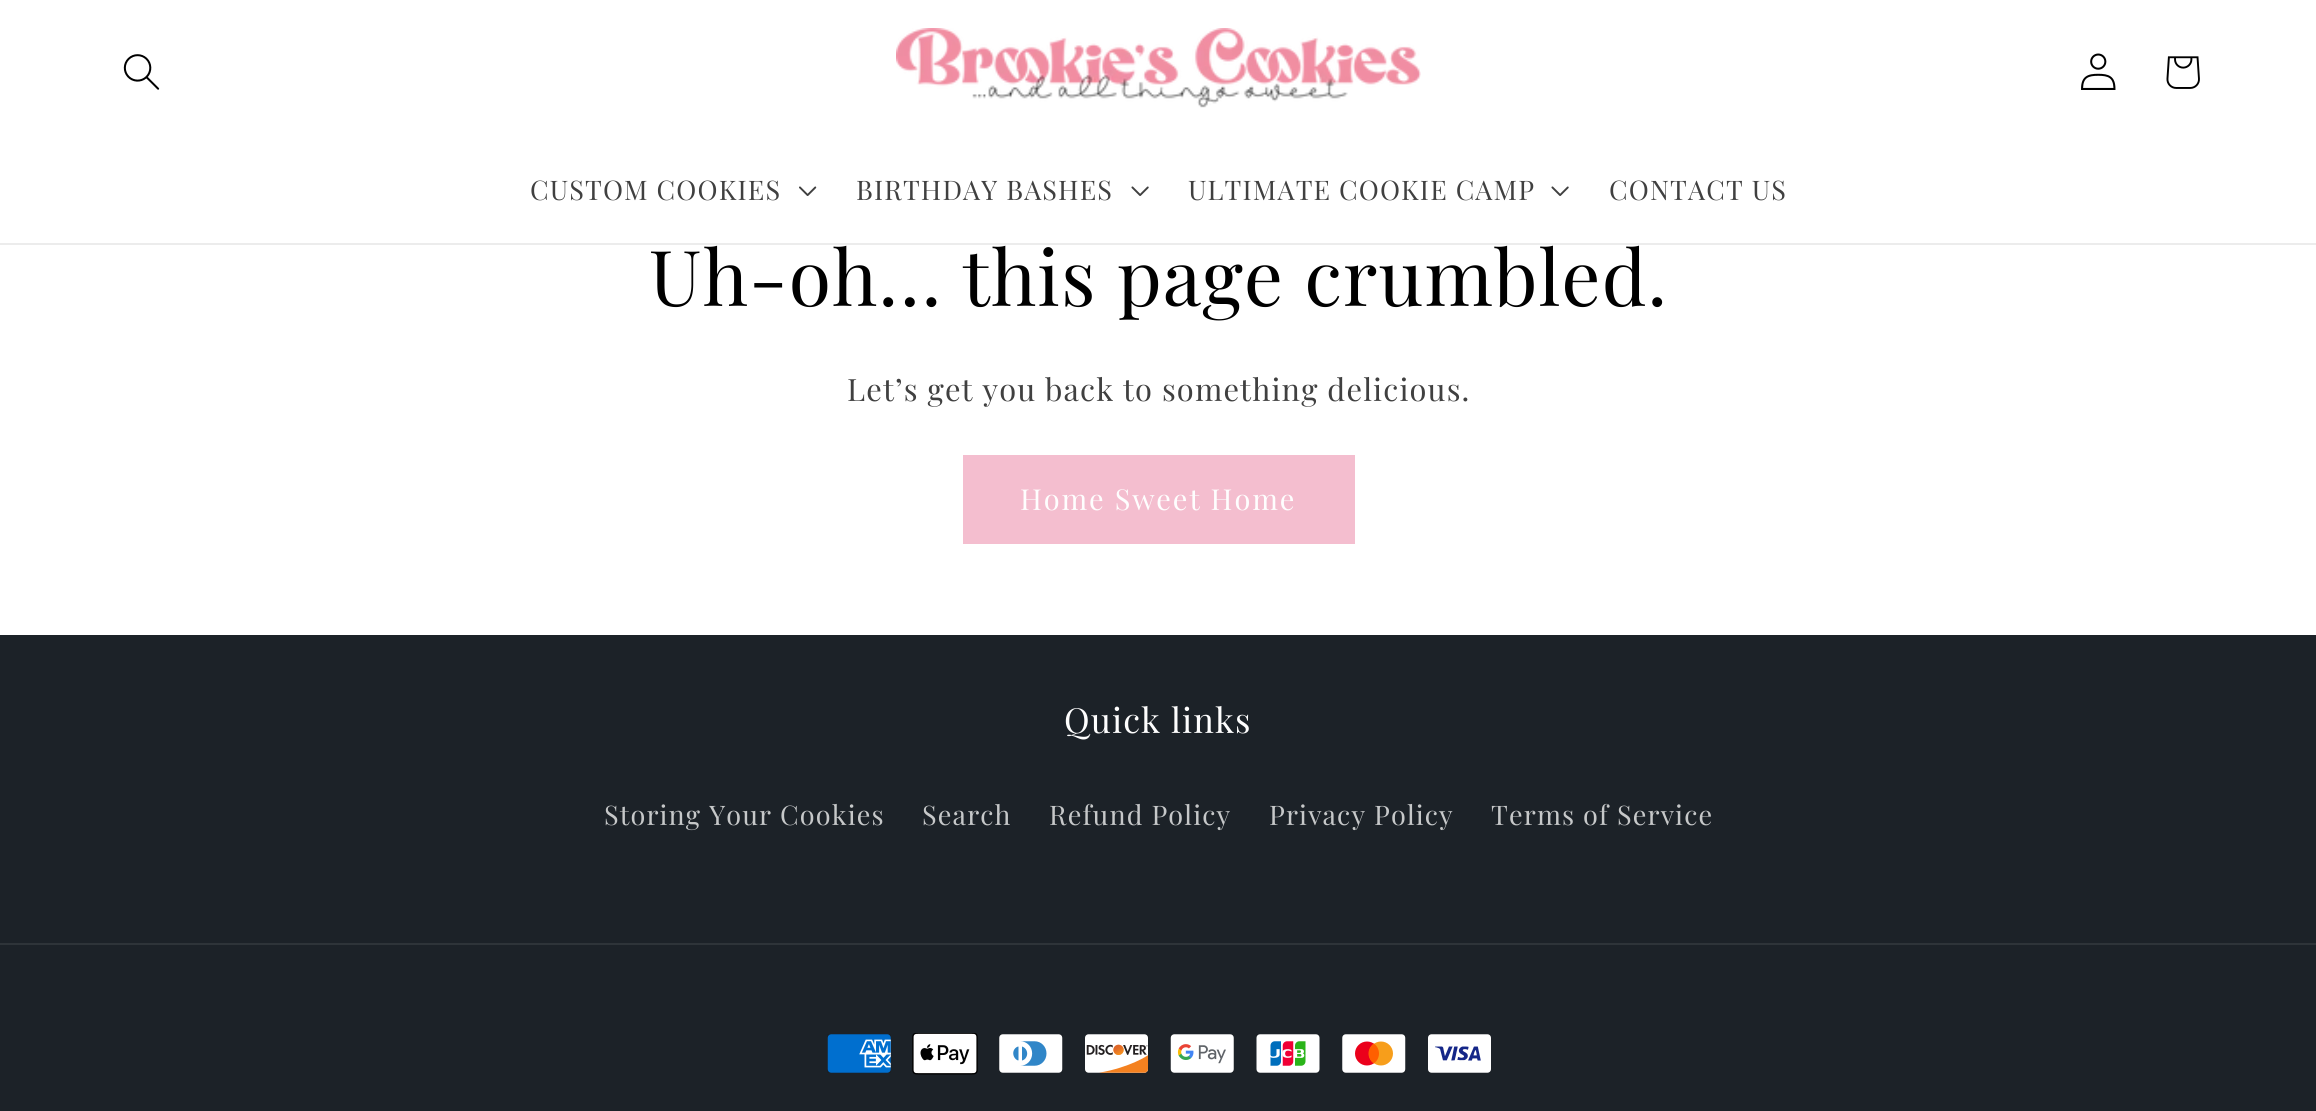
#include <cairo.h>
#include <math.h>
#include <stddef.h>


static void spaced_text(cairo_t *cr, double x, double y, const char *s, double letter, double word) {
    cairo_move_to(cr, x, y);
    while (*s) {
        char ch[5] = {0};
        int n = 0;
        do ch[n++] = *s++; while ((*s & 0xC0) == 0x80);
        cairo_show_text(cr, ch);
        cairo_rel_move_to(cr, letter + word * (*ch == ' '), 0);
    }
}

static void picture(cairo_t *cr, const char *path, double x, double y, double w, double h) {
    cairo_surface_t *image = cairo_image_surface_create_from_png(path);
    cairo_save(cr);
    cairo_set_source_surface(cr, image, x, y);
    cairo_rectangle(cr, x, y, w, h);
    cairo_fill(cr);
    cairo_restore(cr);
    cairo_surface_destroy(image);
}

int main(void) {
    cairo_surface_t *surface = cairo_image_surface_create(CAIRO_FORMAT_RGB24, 2316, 1111);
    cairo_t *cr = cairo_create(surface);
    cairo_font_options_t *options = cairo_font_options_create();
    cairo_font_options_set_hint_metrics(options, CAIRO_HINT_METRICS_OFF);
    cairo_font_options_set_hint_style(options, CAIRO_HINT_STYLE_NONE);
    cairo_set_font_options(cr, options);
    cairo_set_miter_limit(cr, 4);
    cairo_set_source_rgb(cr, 1, 1, 1);
    cairo_paint(cr);
    cairo_set_source_rgb(cr, 0.922, 0.922, 0.922);
    cairo_rectangle(cr, 0, 243, 2316, 2);
    cairo_fill(cr);
    picture(cr, "img1.png", 123, 54, 37, 36);
    picture(cr, "img2.png", 896, 28, 525, 80);
    picture(cr, "img3.png", 2081, 53, 35, 37);
    picture(cr, "img4.png", 2166, 56, 34, 33);
    cairo_select_font_face(cr, "Playfair Display", CAIRO_FONT_SLANT_NORMAL, CAIRO_FONT_WEIGHT_NORMAL);
    cairo_set_font_size(cr, 27);
    cairo_set_source_rgb(cr, 0.251, 0.251, 0.251);
    spaced_text(cr, 530, 200, "CUSTOM COOKIES", 1.15, 0);
    picture(cr, "img5.png", 799, 186, 18, 10);
    spaced_text(cr, 856, 200, "BIRTHDAY BASHES", 1.15, 0);
    picture(cr, "img6.png", 1131, 186, 18, 10);
    spaced_text(cr, 1188, 200, "ULTIMATE COOKIE CAMP", 1.15, 0);
    picture(cr, "img6.png", 1551, 186, 18, 10);
    spaced_text(cr, 1609, 200, "CONTACT US", 1.15, 0);
    cairo_set_font_size(cr, 77);
    cairo_set_source_rgb(cr, 0, 0, 0);
    spaced_text(cr, 649, 306, "Uh-oh… this page crumbled.", 1.15, 0);
    cairo_set_font_size(cr, 30.8);
    cairo_set_source_rgb(cr, 0.251, 0.251, 0.251);
    spaced_text(cr, 847, 401, "Let’s get you back to something delicious.", 1.15, 0);
    cairo_set_source_rgb(cr, 0.957, 0.745, 0.812);
    cairo_rectangle(cr, 963, 455, 392, 89);
    cairo_fill(cr);
    cairo_set_font_size(cr, 28.9);
    cairo_set_source_rgb(cr, 0.996, 0.996, 0.996);
    spaced_text(cr, 1020, 510, "Home Sweet Home", 1.9, 0);
    cairo_set_source_rgb(cr, 0.11, 0.133, 0.157);
    cairo_rectangle(cr, 0, 635, 2316, 476);
    cairo_fill(cr);
    cairo_set_font_size(cr, 34.5);
    cairo_set_source_rgb(cr, 0.996, 0.996, 0.996);
    spaced_text(cr, 1064, 733, "Quick links", 1.15, 0);
    cairo_set_font_size(cr, 27);
    cairo_set_source_rgb(cr, 0.776, 0.784, 0.788);
    spaced_text(cr, 604, 825, "Storing Your Cookies", 1.15, 0);
    spaced_text(cr, 922, 825, "Search", 1.15, 0);
    spaced_text(cr, 1049, 825, "Refund Policy", 1.15, 0);
    spaced_text(cr, 1269, 825, "Privacy Policy", 1.15, 0);
    spaced_text(cr, 1491, 825, "Terms of Service", 1.15, 0);
    cairo_set_source_rgb(cr, 0.18, 0.204, 0.224);
    cairo_rectangle(cr, 0, 943, 2316, 2);
    cairo_fill(cr);
    picture(cr, "img7.png", 827, 1034, 64, 39);
    picture(cr, "img8.png", 912, 1033, 66, 42);
    picture(cr, "img9.png", 999, 1034, 64, 39);
    picture(cr, "img10.png", 1085, 1034, 64, 39);
    picture(cr, "img11.png", 1170, 1034, 64, 39);
    picture(cr, "img12.png", 1256, 1034, 64, 39);
    picture(cr, "img13.png", 1342, 1034, 64, 39);
    picture(cr, "img14.png", 1428, 1034, 63, 39);
    cairo_surface_write_to_png(surface, "page.png");
    cairo_font_options_destroy(options);
    cairo_destroy(cr);
    cairo_surface_destroy(surface);
    return 0;
}
